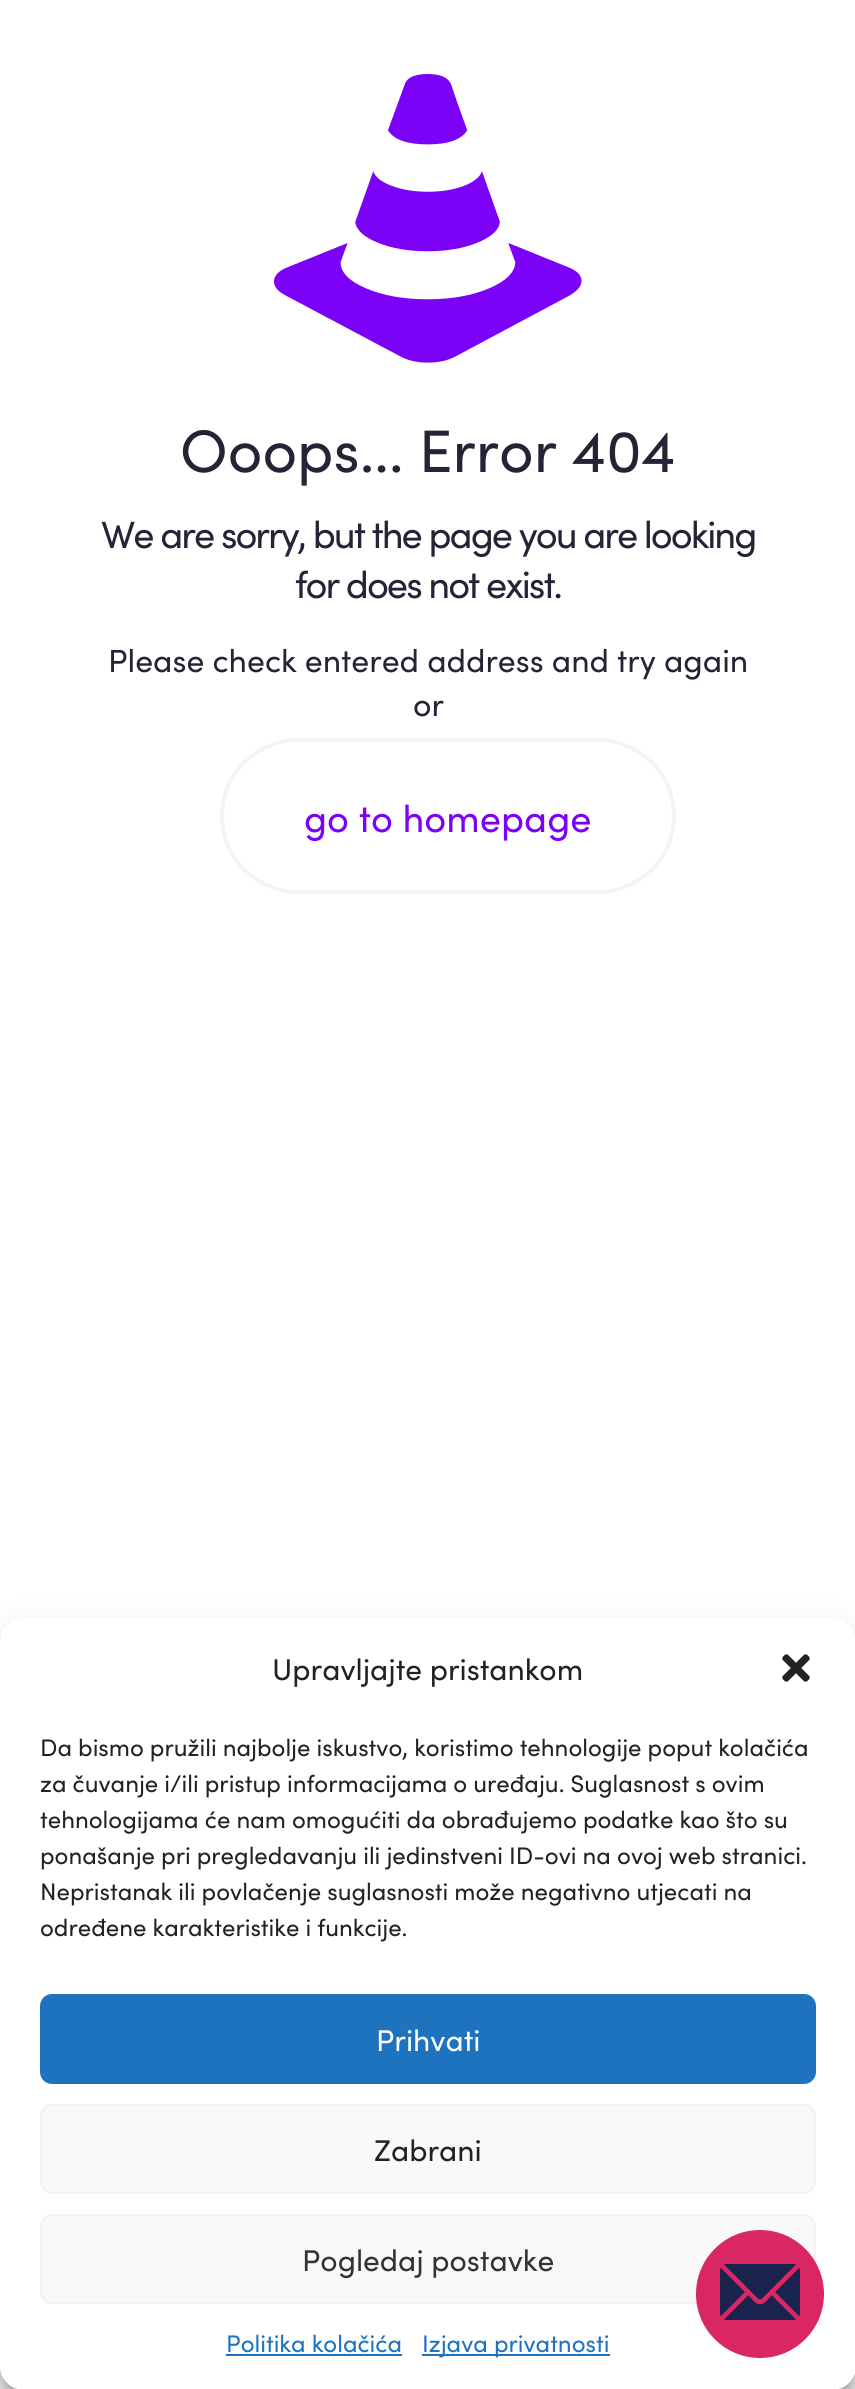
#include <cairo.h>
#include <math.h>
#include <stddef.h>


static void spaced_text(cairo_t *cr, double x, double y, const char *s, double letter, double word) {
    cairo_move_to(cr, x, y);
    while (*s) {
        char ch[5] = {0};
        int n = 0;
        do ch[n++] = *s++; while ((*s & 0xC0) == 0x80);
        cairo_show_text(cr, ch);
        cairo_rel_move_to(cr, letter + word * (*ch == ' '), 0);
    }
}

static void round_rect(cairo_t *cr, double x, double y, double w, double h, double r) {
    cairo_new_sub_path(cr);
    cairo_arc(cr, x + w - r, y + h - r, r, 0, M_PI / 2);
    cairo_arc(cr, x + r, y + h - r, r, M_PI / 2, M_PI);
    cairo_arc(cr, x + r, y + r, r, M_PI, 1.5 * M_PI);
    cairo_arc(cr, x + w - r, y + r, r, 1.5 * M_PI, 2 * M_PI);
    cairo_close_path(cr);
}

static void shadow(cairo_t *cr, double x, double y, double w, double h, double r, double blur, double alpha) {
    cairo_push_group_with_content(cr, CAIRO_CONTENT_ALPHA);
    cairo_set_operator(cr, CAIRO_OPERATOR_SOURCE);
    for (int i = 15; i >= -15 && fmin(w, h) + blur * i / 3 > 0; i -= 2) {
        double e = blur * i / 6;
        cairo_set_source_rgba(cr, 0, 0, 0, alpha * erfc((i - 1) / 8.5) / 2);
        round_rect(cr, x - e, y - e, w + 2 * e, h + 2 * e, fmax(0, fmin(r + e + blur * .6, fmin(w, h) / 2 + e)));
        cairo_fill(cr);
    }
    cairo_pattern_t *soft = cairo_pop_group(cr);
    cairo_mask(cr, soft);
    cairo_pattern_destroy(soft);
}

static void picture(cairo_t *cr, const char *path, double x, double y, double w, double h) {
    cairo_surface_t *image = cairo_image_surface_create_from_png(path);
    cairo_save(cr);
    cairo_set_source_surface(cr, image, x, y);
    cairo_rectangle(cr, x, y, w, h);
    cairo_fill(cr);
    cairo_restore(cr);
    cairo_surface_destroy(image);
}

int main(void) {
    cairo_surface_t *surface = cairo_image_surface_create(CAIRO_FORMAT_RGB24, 855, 2389);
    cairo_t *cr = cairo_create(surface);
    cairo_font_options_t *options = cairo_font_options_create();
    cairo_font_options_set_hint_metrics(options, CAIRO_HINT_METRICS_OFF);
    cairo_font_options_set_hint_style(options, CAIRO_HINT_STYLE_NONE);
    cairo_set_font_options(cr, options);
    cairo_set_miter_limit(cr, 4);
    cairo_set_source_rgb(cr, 1, 1, 1);
    cairo_paint(cr);
    picture(cr, "img1.png", 274, 74, 308, 289);
    cairo_select_font_face(cr, "Sofia", CAIRO_FONT_SLANT_NORMAL, CAIRO_FONT_WEIGHT_NORMAL);
    cairo_set_font_size(cr, 60);
    cairo_set_source_rgb(cr, 0.145, 0.141, 0.212);
    cairo_move_to(cr, 180, 472);
    cairo_show_text(cr, "Ooops... Error 404");
    cairo_set_font_size(cr, 38);
    spaced_text(cr, 101, 548, "We are sorry, but the page you are looking", -2, 0);
    spaced_text(cr, 295, 598, "for does not exist.", -2, 0);
    cairo_set_font_size(cr, 32);
    cairo_move_to(cr, 108, 672);
    cairo_show_text(cr, "Please check entered address and try again");
    cairo_move_to(cr, 413, 716);
    cairo_show_text(cr, "or");
    round_rect(cr, 222, 740, 452, 152, 76);
    cairo_set_source_rgb(cr, 0.957, 0.957, 0.957);
    cairo_set_line_width(cr, 4);
    cairo_stroke(cr);
    cairo_set_font_size(cr, 38);
    cairo_set_source_rgb(cr, 0.482, 0.004, 0.969);
    cairo_move_to(cr, 304, 832);
    cairo_show_text(cr, "go to homepage");
    cairo_set_source_rgb(cr, 0, 0, 0);
    shadow(cr, 0, 1630, 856, 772, 24, 6, 0.23);
    shadow(cr, 0, 1638, 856, 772, 24, 20, 0.19);
    cairo_set_source_rgb(cr, 1, 1, 1);
    round_rect(cr, 0, 1618, 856, 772, 24);
    cairo_fill(cr);
    cairo_set_font_size(cr, 30);
    cairo_set_source_rgb(cr, 0.133, 0.133, 0.133);
    cairo_move_to(cr, 272, 1680);
    cairo_show_text(cr, "Upravljajte pristankom");
    picture(cr, "img2.png", 782, 1654, 28, 28);
    cairo_set_font_size(cr, 24);
    cairo_move_to(cr, 40, 1756);
    cairo_show_text(cr, "Da bismo pružili najbolje iskustvo, koristimo tehnologije poput kolačića");
    cairo_move_to(cr, 40, 1792);
    cairo_show_text(cr, "za čuvanje i/ili pristup informacijama o uređaju. Suglasnost s ovim");
    cairo_move_to(cr, 40, 1828);
    cairo_show_text(cr, "tehnologijama će nam omogućiti da obrađujemo podatke kao što su");
    cairo_move_to(cr, 40, 1864);
    cairo_show_text(cr, "ponašanje pri pregledavanju ili jedinstveni ID-ovi na ovoj web stranici.");
    cairo_move_to(cr, 40, 1900);
    cairo_show_text(cr, "Nepristanak ili povlačenje suglasnosti može negativno utjecati na");
    cairo_move_to(cr, 40, 1936);
    cairo_show_text(cr, "određene karakteristike i funkcije.");
    cairo_set_source_rgb(cr, 0.118, 0.451, 0.745);
    round_rect(cr, 41, 1995, 774, 88, 11);
    cairo_fill_preserve(cr);
    cairo_set_line_width(cr, 2);
    cairo_stroke(cr);
    cairo_set_font_size(cr, 30);
    cairo_set_source_rgb(cr, 1, 1, 1);
    cairo_move_to(cr, 376, 2051);
    cairo_show_text(cr, "Prihvati");
    cairo_set_source_rgb(cr, 0.976, 0.976, 0.976);
    round_rect(cr, 41, 2105, 774, 88, 11);
    cairo_fill_preserve(cr);
    cairo_set_source_rgb(cr, 0.949, 0.949, 0.949);
    cairo_stroke(cr);
    cairo_set_source_rgb(cr, 0.133, 0.133, 0.133);
    cairo_move_to(cr, 374, 2161);
    cairo_show_text(cr, "Zabrani");
    cairo_set_source_rgb(cr, 0.976, 0.976, 0.976);
    round_rect(cr, 41, 2215, 774, 88, 11);
    cairo_fill_preserve(cr);
    cairo_set_source_rgb(cr, 0.949, 0.949, 0.949);
    cairo_stroke(cr);
    cairo_set_source_rgb(cr, 0.2, 0.2, 0.2);
    cairo_move_to(cr, 302, 2271);
    cairo_show_text(cr, "Pogledaj postavke");
    cairo_set_font_size(cr, 24);
    cairo_set_source_rgb(cr, 0.118, 0.451, 0.745);
    cairo_move_to(cr, 226, 2352);
    cairo_show_text(cr, "Politika kolačića");
    cairo_rectangle(cr, 226, 2354, 176, 2);
    cairo_fill(cr);
    cairo_rectangle(cr, 422, 2354, 188, 2);
    cairo_fill(cr);
    cairo_move_to(cr, 422, 2352);
    cairo_show_text(cr, "Izjava privatnosti");
    cairo_set_source_rgb(cr, 0.847, 0.153, 0.384);
    cairo_new_path(cr);
    cairo_arc(cr, 760, 2294, 64, 0, 2 * M_PI);
    cairo_fill(cr);
    picture(cr, "img3.png", 720, 2264, 80, 56);
    cairo_surface_write_to_png(surface, "page.png");
    cairo_font_options_destroy(options);
    cairo_destroy(cr);
    cairo_surface_destroy(surface);
    return 0;
}
